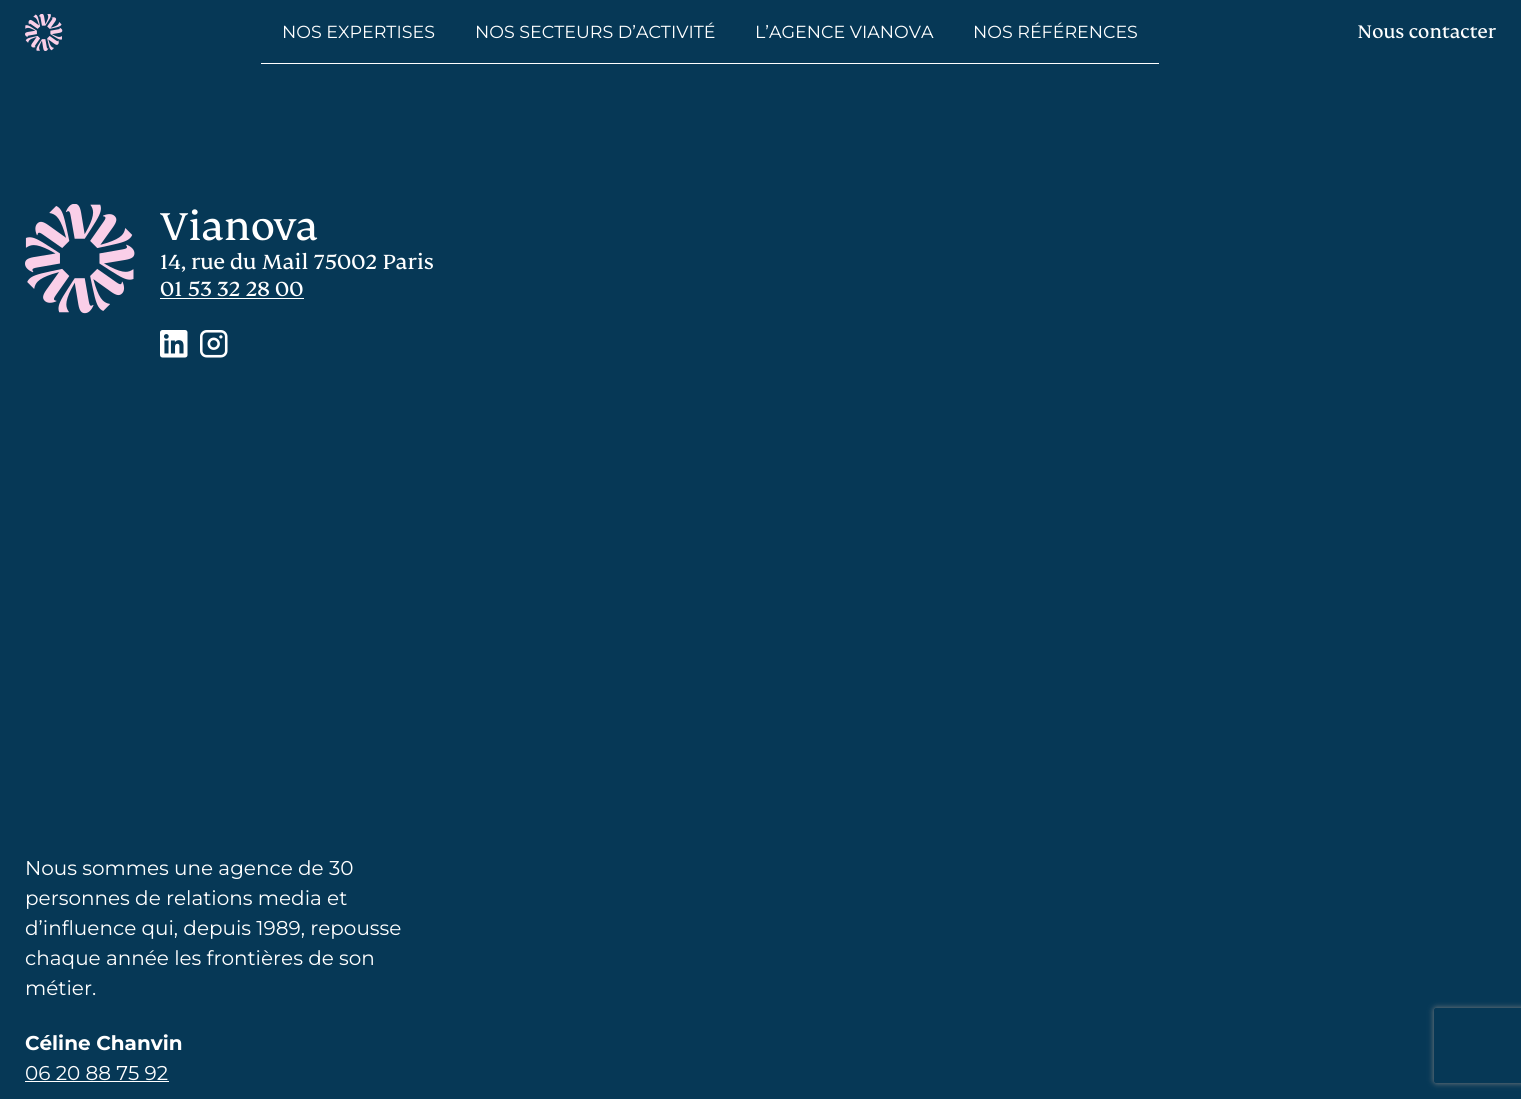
#include <cairo.h>
#include <math.h>
#include <stddef.h>


static void round_rect(cairo_t *cr, double x, double y, double w, double h, double r) {
    cairo_new_sub_path(cr);
    cairo_arc(cr, x + w - r, y + h - r, r, 0, M_PI / 2);
    cairo_arc(cr, x + r, y + h - r, r, M_PI / 2, M_PI);
    cairo_arc(cr, x + r, y + r, r, M_PI, 1.5 * M_PI);
    cairo_arc(cr, x + w - r, y + r, r, 1.5 * M_PI, 2 * M_PI);
    cairo_close_path(cr);
}

static void shadow(cairo_t *cr, double x, double y, double w, double h, double r, double blur, double alpha) {
    cairo_push_group_with_content(cr, CAIRO_CONTENT_ALPHA);
    cairo_set_operator(cr, CAIRO_OPERATOR_SOURCE);
    for (int i = 15; i >= -15 && fmin(w, h) + blur * i / 3 > 0; i -= 2) {
        double e = blur * i / 6;
        cairo_set_source_rgba(cr, 0, 0, 0, alpha * erfc((i - 1) / 8.5) / 2);
        round_rect(cr, x - e, y - e, w + 2 * e, h + 2 * e, fmax(0, fmin(r + e + blur * .6, fmin(w, h) / 2 + e)));
        cairo_fill(cr);
    }
    cairo_pattern_t *soft = cairo_pop_group(cr);
    cairo_mask(cr, soft);
    cairo_pattern_destroy(soft);
}

static void picture(cairo_t *cr, const char *path, double x, double y, double w, double h) {
    cairo_surface_t *image = cairo_image_surface_create_from_png(path);
    cairo_save(cr);
    cairo_set_source_surface(cr, image, x, y);
    cairo_rectangle(cr, x, y, w, h);
    cairo_fill(cr);
    cairo_restore(cr);
    cairo_surface_destroy(image);
}

int main(void) {
    cairo_surface_t *surface = cairo_image_surface_create(CAIRO_FORMAT_RGB24, 1521, 1099);
    cairo_t *cr = cairo_create(surface);
    cairo_font_options_t *options = cairo_font_options_create();
    cairo_font_options_set_hint_metrics(options, CAIRO_HINT_METRICS_OFF);
    cairo_font_options_set_hint_style(options, CAIRO_HINT_STYLE_NONE);
    cairo_set_font_options(cr, options);
    cairo_set_miter_limit(cr, 4);
    cairo_set_source_rgb(cr, 0.027, 0.22, 0.337);
    cairo_paint(cr);
    picture(cr, "img1.png", 25, 14, 38, 37);
    cairo_set_source_rgb(cr, 1, 1, 1);
    cairo_rectangle(cr, 261, 63, 898, 1);
    cairo_fill(cr);
    cairo_select_font_face(cr, "Montserrat", CAIRO_FONT_SLANT_NORMAL, CAIRO_FONT_WEIGHT_NORMAL);
    cairo_set_font_size(cr, 17.5);
    cairo_move_to(cr, 282, 38);
    cairo_show_text(cr, "NOS EXPERTISES");
    cairo_move_to(cr, 475, 38);
    cairo_show_text(cr, "NOS SECTEURS D’ACTIVITÉ");
    cairo_move_to(cr, 755, 38);
    cairo_show_text(cr, "L’AGENCE VIANOVA");
    cairo_move_to(cr, 973, 38);
    cairo_show_text(cr, "NOS RÉFÉRENCES");
    cairo_select_font_face(cr, "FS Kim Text", CAIRO_FONT_SLANT_NORMAL, CAIRO_FONT_WEIGHT_NORMAL);
    cairo_set_font_size(cr, 20);
    cairo_move_to(cr, 1357, 38);
    cairo_show_text(cr, "Nous contacter");
    picture(cr, "img2.png", 25, 204, 110, 110);
    cairo_set_font_size(cr, 42.5);
    cairo_move_to(cr, 160, 240);
    cairo_show_text(cr, "Vianova");
    cairo_set_font_size(cr, 22.5);
    cairo_move_to(cr, 160, 269);
    cairo_show_text(cr, "14, rue du Mail 75002 Paris");
    cairo_move_to(cr, 160, 296);
    cairo_show_text(cr, "01 53 32 28 00");
    cairo_rectangle(cr, 160, 298, 144, 1);
    cairo_fill(cr);
    picture(cr, "img3.png", 160, 330, 28, 28);
    picture(cr, "img4.png", 200, 330, 28, 28);
    cairo_select_font_face(cr, "Montserrat", CAIRO_FONT_SLANT_NORMAL, CAIRO_FONT_WEIGHT_NORMAL);
    cairo_set_font_size(cr, 20);
    cairo_move_to(cr, 25, 875);
    cairo_show_text(cr, "Nous sommes une agence de 30");
    cairo_move_to(cr, 25, 905);
    cairo_show_text(cr, "personnes de relations media et");
    cairo_move_to(cr, 25, 935);
    cairo_show_text(cr, "d’influence qui, depuis 1989, repousse");
    cairo_move_to(cr, 25, 965);
    cairo_show_text(cr, "chaque année les frontières de son");
    cairo_move_to(cr, 25, 995);
    cairo_show_text(cr, "métier.");
    cairo_select_font_face(cr, "Montserrat", CAIRO_FONT_SLANT_NORMAL, CAIRO_FONT_WEIGHT_BOLD);
    cairo_move_to(cr, 25, 1050);
    cairo_show_text(cr, "Céline Chanvin");
    cairo_select_font_face(cr, "Montserrat", CAIRO_FONT_SLANT_NORMAL, CAIRO_FONT_WEIGHT_NORMAL);
    cairo_move_to(cr, 25, 1080);
    cairo_show_text(cr, "06 20 88 75 92");
    cairo_rectangle(cr, 25, 1081, 144, 1);
    cairo_fill(cr);
    cairo_save(cr);
    cairo_set_fill_rule(cr, CAIRO_FILL_RULE_EVEN_ODD);
    cairo_new_path(cr);
    cairo_move_to(cr, 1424, 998);
    cairo_line_to(cr, 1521, 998);
    cairo_line_to(cr, 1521, 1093);
    cairo_line_to(cr, 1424, 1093);
    cairo_close_path(cr);
    cairo_move_to(cr, 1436.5, 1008);
    cairo_line_to(cr, 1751.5, 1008);
    cairo_curve_to(cr, 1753, 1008, 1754, 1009, 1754, 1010.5);
    cairo_line_to(cr, 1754, 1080.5);
    cairo_curve_to(cr, 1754, 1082, 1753, 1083, 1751.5, 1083);
    cairo_line_to(cr, 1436.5, 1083);
    cairo_curve_to(cr, 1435, 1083, 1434, 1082, 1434, 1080.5);
    cairo_line_to(cr, 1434, 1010.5);
    cairo_curve_to(cr, 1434, 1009, 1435, 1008, 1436.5, 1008);
    cairo_close_path(cr);
    cairo_clip(cr);
    cairo_set_source_rgb(cr, 0.502, 0.502, 0.502);
    shadow(cr, 1434, 1008, 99, 75, 2.5, 3, 1);
    cairo_restore(cr);
    cairo_surface_write_to_png(surface, "page.png");
    cairo_font_options_destroy(options);
    cairo_destroy(cr);
    cairo_surface_destroy(surface);
    return 0;
}
